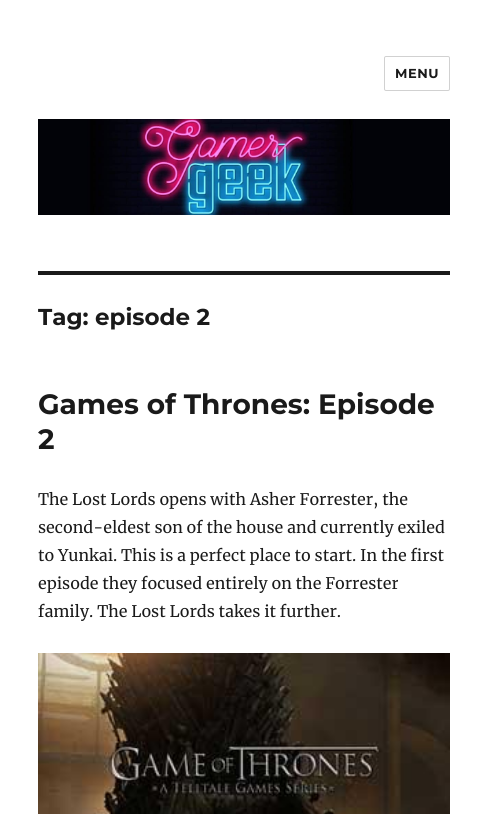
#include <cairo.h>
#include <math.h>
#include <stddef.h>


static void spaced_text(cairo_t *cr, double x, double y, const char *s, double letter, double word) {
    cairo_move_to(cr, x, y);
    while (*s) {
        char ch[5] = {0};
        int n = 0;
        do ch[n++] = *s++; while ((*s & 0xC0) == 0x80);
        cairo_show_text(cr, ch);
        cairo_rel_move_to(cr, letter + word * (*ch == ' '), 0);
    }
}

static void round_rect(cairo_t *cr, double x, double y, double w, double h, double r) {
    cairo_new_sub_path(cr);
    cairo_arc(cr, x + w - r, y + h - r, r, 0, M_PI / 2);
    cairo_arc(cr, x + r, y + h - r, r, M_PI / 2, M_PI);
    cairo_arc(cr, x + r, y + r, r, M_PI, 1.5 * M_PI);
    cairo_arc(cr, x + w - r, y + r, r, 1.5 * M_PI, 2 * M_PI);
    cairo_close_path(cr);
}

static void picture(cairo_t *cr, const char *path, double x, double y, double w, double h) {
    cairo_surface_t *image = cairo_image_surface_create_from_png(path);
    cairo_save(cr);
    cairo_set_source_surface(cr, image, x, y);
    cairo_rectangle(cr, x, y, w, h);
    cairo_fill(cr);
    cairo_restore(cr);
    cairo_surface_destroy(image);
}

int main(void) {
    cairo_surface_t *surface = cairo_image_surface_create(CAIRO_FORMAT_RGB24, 488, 814);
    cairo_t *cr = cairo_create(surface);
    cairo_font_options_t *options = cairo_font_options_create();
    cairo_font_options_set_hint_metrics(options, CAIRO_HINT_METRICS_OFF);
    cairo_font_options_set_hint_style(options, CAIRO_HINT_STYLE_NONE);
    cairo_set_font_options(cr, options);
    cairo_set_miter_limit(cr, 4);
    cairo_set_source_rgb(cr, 1, 1, 1);
    cairo_paint(cr);
    round_rect(cr, 384.5, 56.5, 65, 34, 1.5);
    cairo_set_source_rgb(cr, 0.82, 0.82, 0.82);
    cairo_set_line_width(cr, 1);
    cairo_stroke(cr);
    cairo_select_font_face(cr, "Montserrat Thin", CAIRO_FONT_SLANT_NORMAL, CAIRO_FONT_WEIGHT_NORMAL);
    cairo_set_font_size(cr, 13);
    cairo_set_source_rgb(cr, 0.102, 0.102, 0.102);
    spaced_text(cr, 395, 78, "MENU", 0.5, 0);
    picture(cr, "img1.png", 38, 119, 412, 96);
    cairo_rectangle(cr, 38, 271, 412, 4);
    cairo_fill(cr);
    cairo_set_font_size(cr, 23);
    cairo_move_to(cr, 38, 325);
    cairo_show_text(cr, "Tag: episode 2");
    cairo_set_font_size(cr, 28);
    cairo_move_to(cr, 38, 414);
    cairo_show_text(cr, "Games of Thrones: Episode");
    cairo_move_to(cr, 38, 449);
    cairo_show_text(cr, "2");
    cairo_select_font_face(cr, "Merriweather", CAIRO_FONT_SLANT_NORMAL, CAIRO_FONT_WEIGHT_NORMAL);
    cairo_set_font_size(cr, 16);
    cairo_move_to(cr, 38, 505);
    cairo_show_text(cr, "The Lost Lords opens with Asher Forrester, the");
    cairo_move_to(cr, 38, 533);
    cairo_show_text(cr, "second-eldest son of the house and currently exiled");
    cairo_move_to(cr, 38, 561);
    cairo_show_text(cr, "to Yunkai. This is a perfect place to start. In the first");
    cairo_move_to(cr, 38, 589);
    cairo_show_text(cr, "episode they focused entirely on the Forrester");
    cairo_move_to(cr, 38, 617);
    cairo_show_text(cr, "family. The Lost Lords takes it further.");
    picture(cr, "img2.png", 38, 653, 412, 161);
    cairo_surface_write_to_png(surface, "page.png");
    cairo_font_options_destroy(options);
    cairo_destroy(cr);
    cairo_surface_destroy(surface);
    return 0;
}
